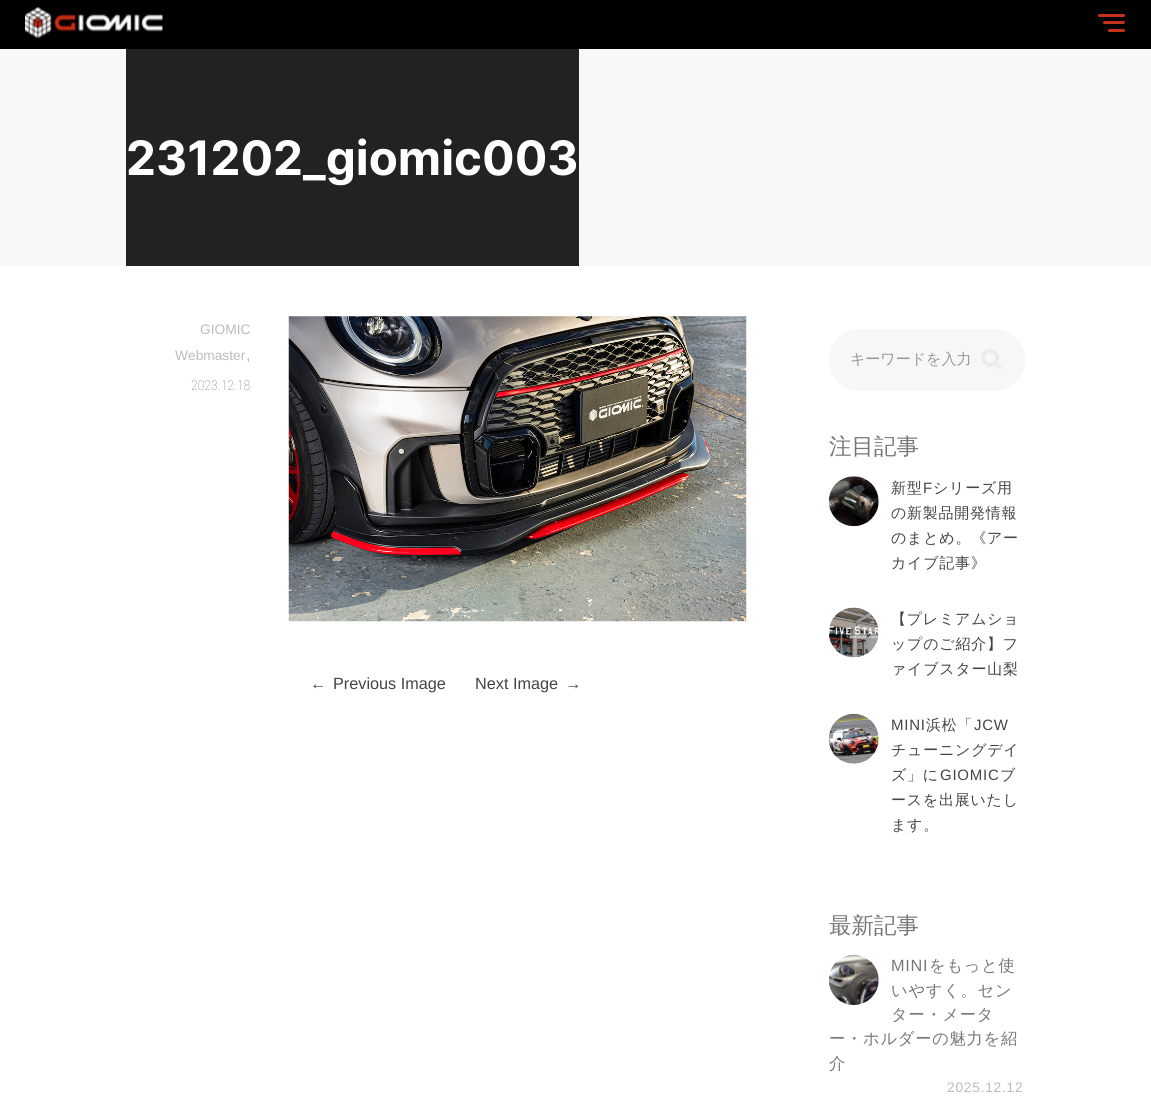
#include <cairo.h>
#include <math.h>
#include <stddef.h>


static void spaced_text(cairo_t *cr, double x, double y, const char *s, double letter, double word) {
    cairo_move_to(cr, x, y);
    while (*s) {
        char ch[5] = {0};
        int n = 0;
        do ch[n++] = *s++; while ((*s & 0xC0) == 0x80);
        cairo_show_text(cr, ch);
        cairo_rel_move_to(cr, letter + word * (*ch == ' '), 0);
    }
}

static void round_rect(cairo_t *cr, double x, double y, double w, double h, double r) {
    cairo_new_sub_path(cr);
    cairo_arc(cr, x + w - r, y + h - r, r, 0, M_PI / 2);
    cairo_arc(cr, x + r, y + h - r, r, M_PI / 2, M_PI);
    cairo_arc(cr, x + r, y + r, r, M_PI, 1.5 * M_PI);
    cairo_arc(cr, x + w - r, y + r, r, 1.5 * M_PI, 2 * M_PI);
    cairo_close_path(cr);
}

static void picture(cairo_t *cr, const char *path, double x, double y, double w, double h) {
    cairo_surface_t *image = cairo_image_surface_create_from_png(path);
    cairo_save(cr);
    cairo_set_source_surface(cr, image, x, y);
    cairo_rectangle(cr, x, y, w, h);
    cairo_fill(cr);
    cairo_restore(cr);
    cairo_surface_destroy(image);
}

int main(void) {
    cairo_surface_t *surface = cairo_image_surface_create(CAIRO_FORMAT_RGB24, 1151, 1113);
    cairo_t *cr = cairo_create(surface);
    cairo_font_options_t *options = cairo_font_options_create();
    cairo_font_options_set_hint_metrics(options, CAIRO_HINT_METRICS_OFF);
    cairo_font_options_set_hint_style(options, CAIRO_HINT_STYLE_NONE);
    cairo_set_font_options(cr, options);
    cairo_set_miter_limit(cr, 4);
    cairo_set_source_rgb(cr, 1, 1, 1);
    cairo_paint(cr);
    cairo_set_source_rgb(cr, 0, 0, 0);
    cairo_rectangle(cr, 0, 0, 1151, 49);
    cairo_fill(cr);
    picture(cr, "img1.png", 25, 7, 138, 31);
    cairo_set_source_rgb(cr, 0.776, 0.192, 0.114);
    round_rect(cr, 1103, 21, 22, 3, 1.5);
    cairo_fill(cr);
    round_rect(cr, 1098, 14, 27, 3, 1.5);
    cairo_fill(cr);
    round_rect(cr, 1108, 29, 17, 3, 1.5);
    cairo_fill(cr);
    cairo_set_source_rgb(cr, 0.969, 0.969, 0.969);
    cairo_rectangle(cr, 0, 49, 1151, 217);
    cairo_fill(cr);
    cairo_set_source_rgb(cr, 0.133, 0.133, 0.133);
    cairo_rectangle(cr, 126, 49, 453, 217);
    cairo_fill(cr);
    cairo_select_font_face(cr, "Inter", CAIRO_FONT_SLANT_NORMAL, CAIRO_FONT_WEIGHT_BOLD);
    cairo_set_font_size(cr, 47.5);
    cairo_set_source_rgb(cr, 1, 1, 1);
    cairo_move_to(cr, 126, 175);
    cairo_show_text(cr, "231202_giomic003");
    cairo_select_font_face(cr, "Liberation Sans", CAIRO_FONT_SLANT_NORMAL, CAIRO_FONT_WEIGHT_NORMAL);
    cairo_set_font_size(cr, 13.75);
    cairo_set_source_rgb(cr, 0.733, 0.733, 0.733);
    cairo_move_to(cr, 200, 334);
    cairo_show_text(cr, "GIOMIC");
    cairo_move_to(cr, 175, 360);
    cairo_show_text(cr, "Webmaster");
    cairo_set_font_size(cr, 16.25);
    cairo_move_to(cr, 246, 360);
    cairo_show_text(cr, ",");
    cairo_select_font_face(cr, "Roboto Condensed Thin", CAIRO_FONT_SLANT_NORMAL, CAIRO_FONT_WEIGHT_NORMAL);
    cairo_set_font_size(cr, 13.75);
    cairo_set_source_rgb(cr, 0.467, 0.467, 0.467);
    cairo_move_to(cr, 191, 390);
    cairo_show_text(cr, "2023.12.18");
    picture(cr, "img2.png", 288, 316, 459, 306);
    cairo_select_font_face(cr, "Liberation Sans", CAIRO_FONT_SLANT_NORMAL, CAIRO_FONT_WEIGHT_NORMAL);
    cairo_set_font_size(cr, 16.25);
    cairo_set_source_rgb(cr, 0.267, 0.267, 0.267);
    cairo_move_to(cr, 310, 689);
    cairo_show_text(cr, "←");
    cairo_move_to(cr, 333, 689);
    cairo_show_text(cr, "Previous Image");
    cairo_move_to(cr, 475, 689);
    cairo_show_text(cr, "Next Image");
    cairo_move_to(cr, 565, 689);
    cairo_show_text(cr, "→");
    cairo_set_source_rgb(cr, 0.969, 0.961, 0.961);
    round_rect(cr, 829, 329, 196, 62, 31);
    cairo_fill(cr);
    cairo_select_font_face(cr, "WenQuanYi Zen Hei Medium", CAIRO_FONT_SLANT_NORMAL, CAIRO_FONT_WEIGHT_NORMAL);
    cairo_set_font_size(cr, 15);
    cairo_set_source_rgb(cr, 0.6, 0.6, 0.6);
    cairo_move_to(cr, 850, 364);
    cairo_show_text(cr, "キーワードを入力");
    picture(cr, "img3.png", 981, 349, 21, 20);
    cairo_set_font_size(cr, 22.5);
    cairo_set_source_rgb(cr, 0.467, 0.467, 0.467);
    cairo_move_to(cr, 829, 454);
    cairo_show_text(cr, "注目記事");
    picture(cr, "img4.png", 828, 476, 51, 51);
    cairo_set_font_size(cr, 15);
    cairo_set_source_rgb(cr, 0.267, 0.267, 0.267);
    spaced_text(cr, 891, 493, "新型", 0.75, 0);
    cairo_select_font_face(cr, "Liberation Sans", CAIRO_FONT_SLANT_NORMAL, CAIRO_FONT_WEIGHT_NORMAL);
    spaced_text(cr, 923, 493, "F", 0.75, 0);
    cairo_select_font_face(cr, "WenQuanYi Zen Hei Medium", CAIRO_FONT_SLANT_NORMAL, CAIRO_FONT_WEIGHT_NORMAL);
    spaced_text(cr, 933, 493, "シリーズ用", 0.75, 0);
    spaced_text(cr, 891, 518, "の新製品開発情報", 0.75, 0);
    spaced_text(cr, 891, 543, "のまとめ。《アー", 0.75, 0);
    spaced_text(cr, 891, 568, "カイブ記事》", 0.75, 0);
    picture(cr, "img5.png", 829, 607, 50, 51);
    spaced_text(cr, 891, 624, "【プレミアムショ", 0.75, 0);
    spaced_text(cr, 891, 649, "ップのご紹介】フ", 0.75, 0);
    spaced_text(cr, 891, 674, "ァイブスター山梨", 0.75, 0);
    picture(cr, "img6.png", 828, 713, 51, 51);
    cairo_select_font_face(cr, "Liberation Sans", CAIRO_FONT_SLANT_NORMAL, CAIRO_FONT_WEIGHT_NORMAL);
    spaced_text(cr, 891, 730, "MINI", 0.75, 0);
    cairo_select_font_face(cr, "WenQuanYi Zen Hei Medium", CAIRO_FONT_SLANT_NORMAL, CAIRO_FONT_WEIGHT_NORMAL);
    spaced_text(cr, 926, 730, "浜松「", 0.75, 0);
    cairo_select_font_face(cr, "Liberation Sans", CAIRO_FONT_SLANT_NORMAL, CAIRO_FONT_WEIGHT_NORMAL);
    spaced_text(cr, 974, 730, "JCW", 0.75, 0);
    cairo_select_font_face(cr, "WenQuanYi Zen Hei Medium", CAIRO_FONT_SLANT_NORMAL, CAIRO_FONT_WEIGHT_NORMAL);
    spaced_text(cr, 891, 755, "チューニングデイ", 0.75, 0);
    spaced_text(cr, 891, 780, "ズ」に", 0.75, 0);
    cairo_select_font_face(cr, "Liberation Sans", CAIRO_FONT_SLANT_NORMAL, CAIRO_FONT_WEIGHT_NORMAL);
    spaced_text(cr, 940, 780, "GIOMIC", 0.75, 0);
    cairo_select_font_face(cr, "WenQuanYi Zen Hei Medium", CAIRO_FONT_SLANT_NORMAL, CAIRO_FONT_WEIGHT_NORMAL);
    spaced_text(cr, 1000, 780, "ブ", 0.75, 0);
    spaced_text(cr, 891, 805, "ースを出展いたし", 0.75, 0);
    spaced_text(cr, 891, 830, "ます。", 0.75, 0);
    cairo_set_font_size(cr, 22.5);
    cairo_set_source_rgb(cr, 0.467, 0.467, 0.467);
    cairo_move_to(cr, 829, 933);
    cairo_show_text(cr, "最新記事");
    picture(cr, "img7.png", 828, 955, 51, 50);
    cairo_select_font_face(cr, "Liberation Sans", CAIRO_FONT_SLANT_NORMAL, CAIRO_FONT_WEIGHT_NORMAL);
    cairo_set_font_size(cr, 16.25);
    spaced_text(cr, 891, 971, "MINI", 0.75, 0);
    cairo_select_font_face(cr, "WenQuanYi Zen Hei Medium", CAIRO_FONT_SLANT_NORMAL, CAIRO_FONT_WEIGHT_NORMAL);
    spaced_text(cr, 929, 971, "をもっと使", 0.75, 0);
    spaced_text(cr, 891, 996, "いやすく。セン", 0.75, 0);
    spaced_text(cr, 891, 1020, "ター・メータ", 0.75, 0);
    spaced_text(cr, 829, 1044, "ー・ホルダーの魅力を紹", 0.75, 0);
    spaced_text(cr, 829, 1069, "介", 0.75, 0);
    cairo_select_font_face(cr, "Liberation Sans", CAIRO_FONT_SLANT_NORMAL, CAIRO_FONT_WEIGHT_NORMAL);
    cairo_set_font_size(cr, 13.75);
    cairo_set_source_rgb(cr, 0.733, 0.733, 0.733);
    spaced_text(cr, 947, 1092, "2025.12.12", 0.75, 0);
    cairo_surface_write_to_png(surface, "page.png");
    cairo_font_options_destroy(options);
    cairo_destroy(cr);
    cairo_surface_destroy(surface);
    return 0;
}
